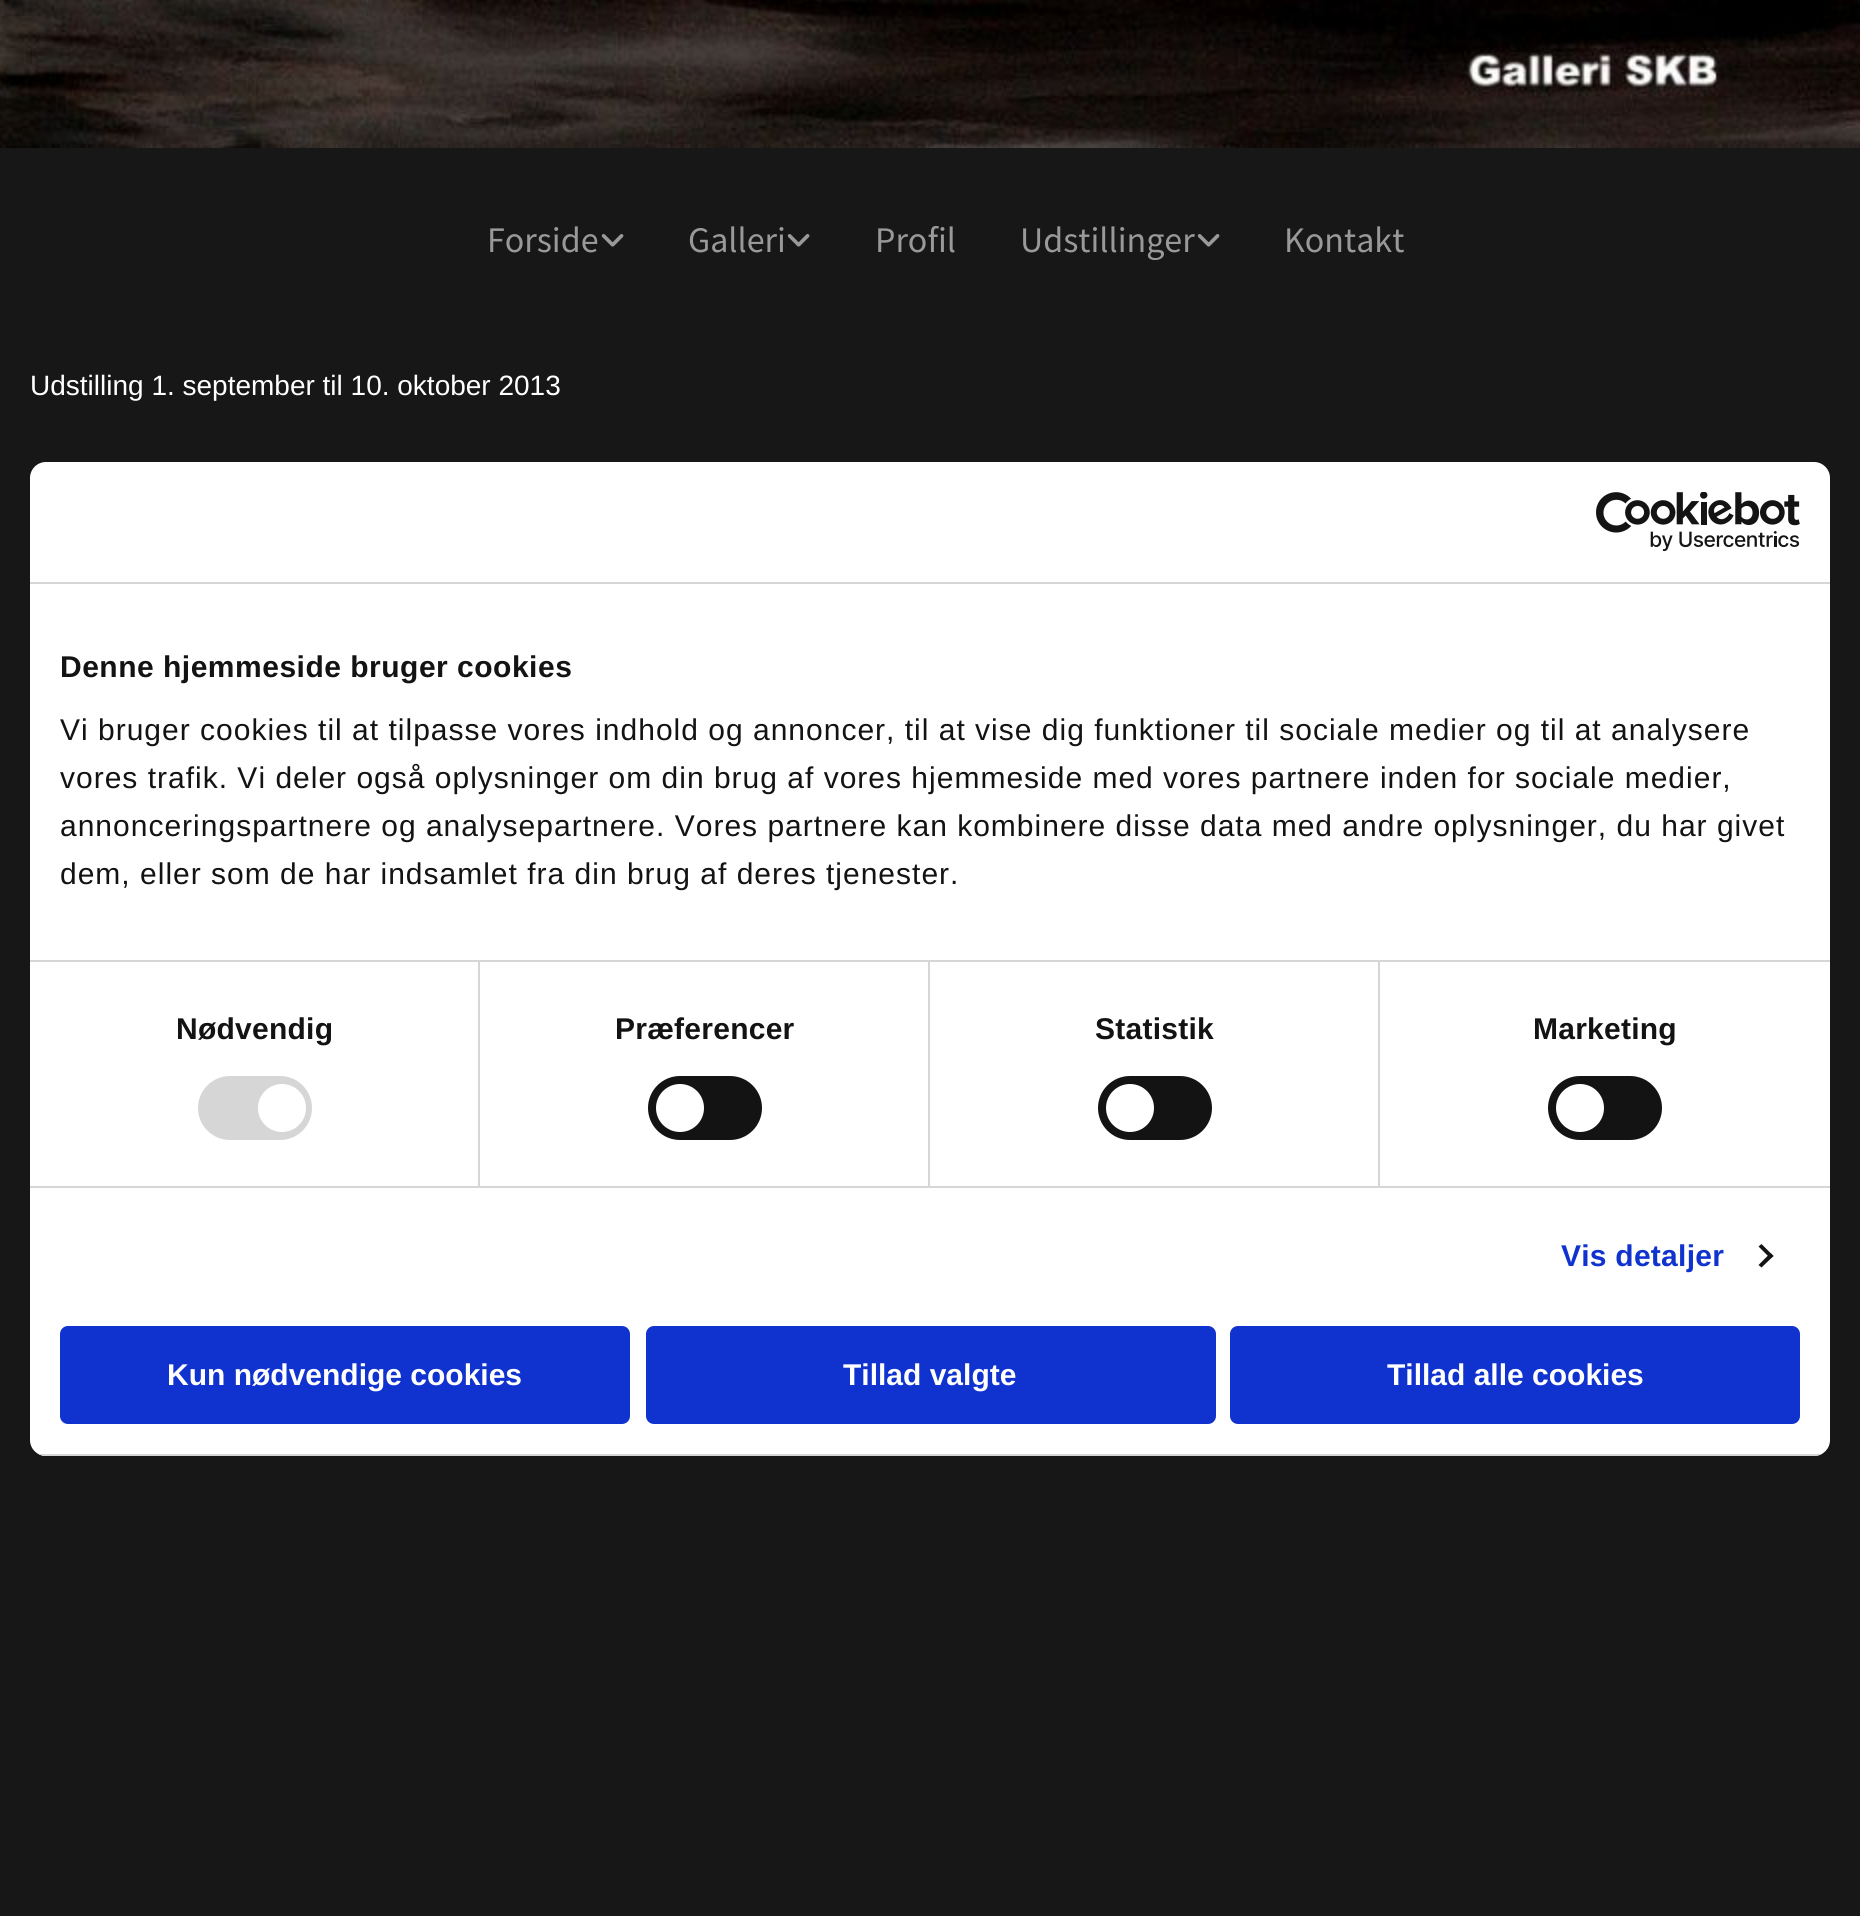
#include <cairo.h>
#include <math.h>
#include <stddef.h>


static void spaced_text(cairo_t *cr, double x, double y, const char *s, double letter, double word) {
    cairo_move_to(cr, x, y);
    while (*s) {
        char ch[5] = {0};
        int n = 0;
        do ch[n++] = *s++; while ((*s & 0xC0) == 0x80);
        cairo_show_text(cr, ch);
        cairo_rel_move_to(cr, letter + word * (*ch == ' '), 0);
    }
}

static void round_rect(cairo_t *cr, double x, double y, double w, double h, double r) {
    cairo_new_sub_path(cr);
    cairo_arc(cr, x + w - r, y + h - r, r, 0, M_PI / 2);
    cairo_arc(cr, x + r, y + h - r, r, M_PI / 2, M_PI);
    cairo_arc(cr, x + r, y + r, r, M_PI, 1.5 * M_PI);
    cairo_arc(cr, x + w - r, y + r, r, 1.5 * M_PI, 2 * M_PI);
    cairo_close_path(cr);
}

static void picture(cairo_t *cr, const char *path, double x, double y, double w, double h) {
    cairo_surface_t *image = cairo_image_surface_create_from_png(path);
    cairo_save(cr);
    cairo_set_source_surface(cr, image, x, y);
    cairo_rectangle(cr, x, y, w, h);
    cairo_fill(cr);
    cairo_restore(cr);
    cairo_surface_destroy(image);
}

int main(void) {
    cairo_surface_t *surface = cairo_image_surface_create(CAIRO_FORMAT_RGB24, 1860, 1916);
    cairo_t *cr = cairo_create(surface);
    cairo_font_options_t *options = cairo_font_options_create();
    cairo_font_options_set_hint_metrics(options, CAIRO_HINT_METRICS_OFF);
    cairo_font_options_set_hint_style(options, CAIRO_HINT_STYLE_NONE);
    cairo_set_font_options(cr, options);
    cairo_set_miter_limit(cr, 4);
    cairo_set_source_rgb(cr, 0.09, 0.09, 0.09);
    cairo_paint(cr);
    picture(cr, "img1.png", 0, 0, 1860, 148);
    cairo_select_font_face(cr, "Source Sans Pro", CAIRO_FONT_SLANT_NORMAL, CAIRO_FONT_WEIGHT_NORMAL);
    cairo_set_font_size(cr, 36);
    cairo_set_source_rgb(cr, 0.6, 0.6, 0.6);
    cairo_move_to(cr, 487, 252);
    cairo_show_text(cr, "Forside");
    picture(cr, "img2.png", 601, 234, 23, 13);
    cairo_move_to(cr, 688, 252);
    cairo_show_text(cr, "Galleri");
    picture(cr, "img2.png", 787, 234, 23, 13);
    cairo_move_to(cr, 875, 252);
    cairo_show_text(cr, "Profil");
    cairo_move_to(cr, 1020, 252);
    cairo_show_text(cr, "Udstillinger");
    picture(cr, "img2.png", 1197, 234, 23, 13);
    cairo_move_to(cr, 1284, 252);
    cairo_show_text(cr, "Kontakt");
    cairo_select_font_face(cr, "Liberation Sans", CAIRO_FONT_SLANT_NORMAL, CAIRO_FONT_WEIGHT_NORMAL);
    cairo_set_font_size(cr, 28);
    cairo_set_source_rgb(cr, 1, 1, 1);
    cairo_move_to(cr, 30, 395);
    cairo_show_text(cr, "Udstilling 1. september til 10. oktober 2013");
    round_rect(cr, 30, 462, 1800, 994, 16);
    cairo_fill(cr);
    cairo_set_source_rgb(cr, 0.839, 0.839, 0.839);
    cairo_rectangle(cr, 30, 582, 1800, 2);
    cairo_fill(cr);
    picture(cr, "img3.png", 1596, 492, 204, 60);
    cairo_rectangle(cr, 30, 960, 1800, 2);
    cairo_fill(cr);
    cairo_select_font_face(cr, "Liberation Sans", CAIRO_FONT_SLANT_NORMAL, CAIRO_FONT_WEIGHT_BOLD);
    cairo_set_font_size(cr, 30);
    cairo_set_source_rgb(cr, 0.078, 0.078, 0.078);
    spaced_text(cr, 60, 677, "Denne hjemmeside bruger cookies", 0.5, 0);
    cairo_select_font_face(cr, "Liberation Sans", CAIRO_FONT_SLANT_NORMAL, CAIRO_FONT_WEIGHT_NORMAL);
    spaced_text(cr, 60, 740, "Vi bruger cookies til at tilpasse vores indhold og annoncer, til at vise dig funktioner til sociale medier og til at analysere", 1, 0);
    spaced_text(cr, 60, 788, "vores trafik. Vi deler også oplysninger om din brug af vores hjemmeside med vores partnere inden for sociale medier,", 1, 0);
    spaced_text(cr, 60, 836, "annonceringspartnere og analysepartnere. Vores partnere kan kombinere disse data med andre oplysninger, du har givet", 1, 0);
    spaced_text(cr, 60, 884, "dem, eller som de har indsamlet fra din brug af deres tjenester.", 1, 0);
    cairo_set_source_rgb(cr, 0.839, 0.839, 0.839);
    cairo_rectangle(cr, 30, 1186, 1800, 2);
    cairo_fill(cr);
    cairo_rectangle(cr, 478, 962, 2, 224);
    cairo_fill(cr);
    cairo_select_font_face(cr, "Liberation Sans", CAIRO_FONT_SLANT_NORMAL, CAIRO_FONT_WEIGHT_BOLD);
    cairo_set_source_rgb(cr, 0.078, 0.078, 0.078);
    spaced_text(cr, 176, 1039, "Nødvendig", 0.25, 0);
    cairo_set_source_rgb(cr, 0.839, 0.839, 0.839);
    round_rect(cr, 198, 1076, 114, 64, 32);
    cairo_fill(cr);
    cairo_set_source_rgb(cr, 1, 1, 1);
    cairo_arc(cr, 282, 1108, 24, 0, 2 * M_PI);
    cairo_fill(cr);
    cairo_set_source_rgb(cr, 0.839, 0.839, 0.839);
    cairo_rectangle(cr, 928, 962, 2, 224);
    cairo_fill(cr);
    cairo_set_source_rgb(cr, 0.078, 0.078, 0.078);
    spaced_text(cr, 615, 1039, "Præferencer", 0.25, 0);
    round_rect(cr, 648, 1076, 114, 64, 32);
    cairo_fill(cr);
    cairo_set_source_rgb(cr, 1, 1, 1);
    cairo_arc(cr, 680, 1108, 24, 0, 2 * M_PI);
    cairo_fill(cr);
    cairo_set_source_rgb(cr, 0.839, 0.839, 0.839);
    cairo_rectangle(cr, 1378, 962, 2, 224);
    cairo_fill(cr);
    cairo_set_source_rgb(cr, 0.078, 0.078, 0.078);
    spaced_text(cr, 1095, 1039, "Statistik", 0.25, 0);
    round_rect(cr, 1098, 1076, 114, 64, 32);
    cairo_fill(cr);
    cairo_set_source_rgb(cr, 1, 1, 1);
    cairo_arc(cr, 1130, 1108, 24, 0, 2 * M_PI);
    cairo_fill(cr);
    cairo_set_source_rgb(cr, 0.078, 0.078, 0.078);
    spaced_text(cr, 1533, 1039, "Marketing", 0.25, 0);
    round_rect(cr, 1548, 1076, 114, 64, 32);
    cairo_fill(cr);
    cairo_set_source_rgb(cr, 1, 1, 1);
    cairo_arc(cr, 1580, 1108, 24, 0, 2 * M_PI);
    cairo_fill(cr);
    cairo_set_source_rgb(cr, 0.063, 0.196, 0.812);
    spaced_text(cr, 1561, 1266, "Vis detaljer", 0.25, 0);
    cairo_set_source_rgb(cr, 0.078, 0.078, 0.078);
    cairo_new_path(cr);
    cairo_move_to(cr, 1761.5, 1244);
    cairo_line_to(cr, 1773.5, 1256);
    cairo_line_to(cr, 1770.5, 1258.5);
    cairo_line_to(cr, 1758.5, 1246.5);
    cairo_close_path(cr);
    cairo_fill(cr);
    cairo_new_path(cr);
    cairo_move_to(cr, 1770.5, 1253);
    cairo_line_to(cr, 1773.5, 1256);
    cairo_line_to(cr, 1761.5, 1267.5);
    cairo_line_to(cr, 1758.5, 1265);
    cairo_close_path(cr);
    cairo_fill(cr);
    cairo_save(cr);
    round_rect(cr, 30, 462, 1800, 994, 16);
    cairo_clip(cr);
    cairo_set_source_rgb(cr, 0.839, 0.839, 0.839);
    cairo_rectangle(cr, 30, 1454, 1800, 2);
    cairo_fill(cr);
    cairo_restore(cr);
    cairo_set_source_rgb(cr, 0.063, 0.196, 0.812);
    round_rect(cr, 62, 1328, 566, 94, 6);
    cairo_fill_preserve(cr);
    cairo_set_line_width(cr, 4);
    cairo_stroke(cr);
    cairo_set_source_rgb(cr, 1, 1, 1);
    cairo_move_to(cr, 167, 1385);
    cairo_show_text(cr, "Kun nødvendige cookies");
    cairo_set_source_rgb(cr, 0.063, 0.196, 0.812);
    round_rect(cr, 648, 1328, 566, 94, 6);
    cairo_fill_preserve(cr);
    cairo_stroke(cr);
    cairo_set_source_rgb(cr, 1, 1, 1);
    cairo_move_to(cr, 843, 1385);
    cairo_show_text(cr, "Tillad valgte");
    cairo_set_source_rgb(cr, 0.063, 0.196, 0.812);
    round_rect(cr, 1232, 1328, 566, 94, 6);
    cairo_fill_preserve(cr);
    cairo_stroke(cr);
    cairo_set_source_rgb(cr, 1, 1, 1);
    cairo_move_to(cr, 1387, 1385);
    cairo_show_text(cr, "Tillad alle cookies");
    cairo_surface_write_to_png(surface, "page.png");
    cairo_font_options_destroy(options);
    cairo_destroy(cr);
    cairo_surface_destroy(surface);
    return 0;
}
